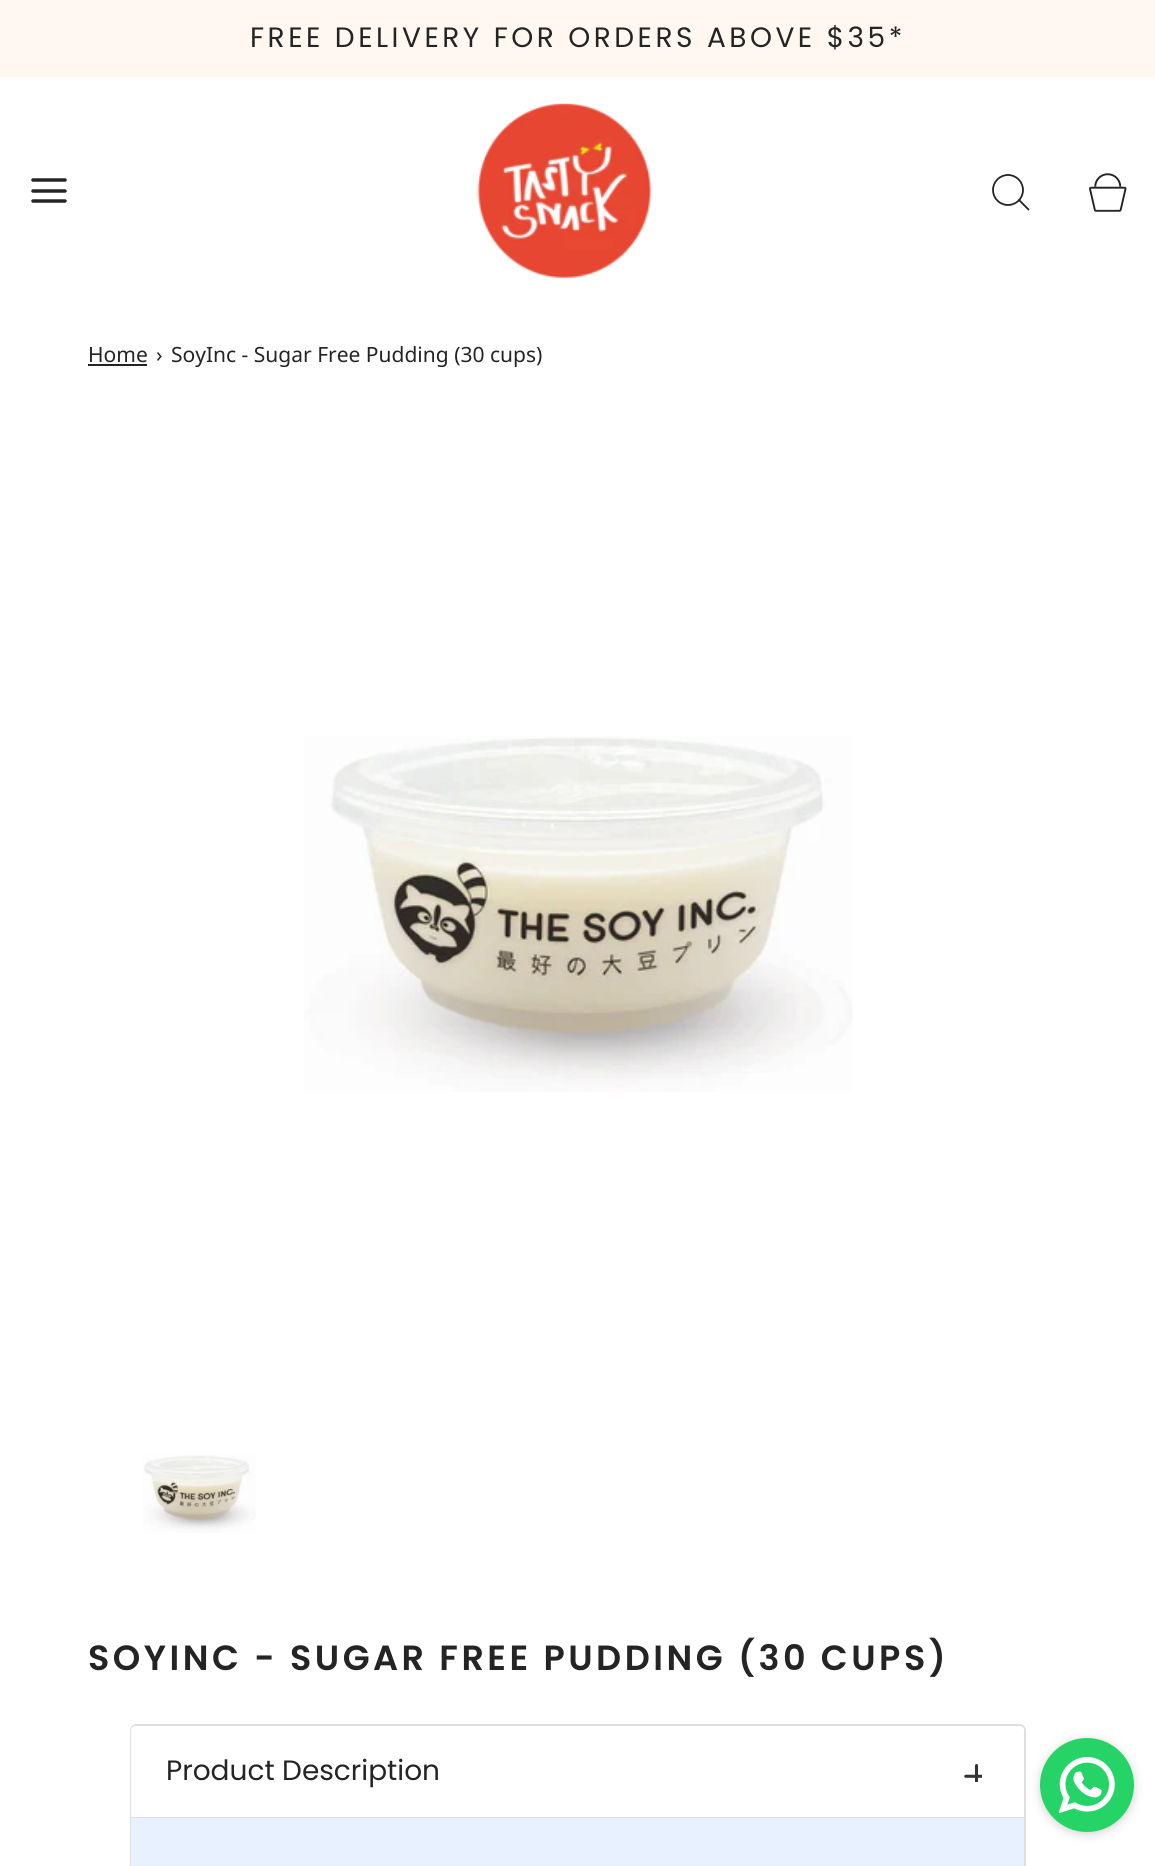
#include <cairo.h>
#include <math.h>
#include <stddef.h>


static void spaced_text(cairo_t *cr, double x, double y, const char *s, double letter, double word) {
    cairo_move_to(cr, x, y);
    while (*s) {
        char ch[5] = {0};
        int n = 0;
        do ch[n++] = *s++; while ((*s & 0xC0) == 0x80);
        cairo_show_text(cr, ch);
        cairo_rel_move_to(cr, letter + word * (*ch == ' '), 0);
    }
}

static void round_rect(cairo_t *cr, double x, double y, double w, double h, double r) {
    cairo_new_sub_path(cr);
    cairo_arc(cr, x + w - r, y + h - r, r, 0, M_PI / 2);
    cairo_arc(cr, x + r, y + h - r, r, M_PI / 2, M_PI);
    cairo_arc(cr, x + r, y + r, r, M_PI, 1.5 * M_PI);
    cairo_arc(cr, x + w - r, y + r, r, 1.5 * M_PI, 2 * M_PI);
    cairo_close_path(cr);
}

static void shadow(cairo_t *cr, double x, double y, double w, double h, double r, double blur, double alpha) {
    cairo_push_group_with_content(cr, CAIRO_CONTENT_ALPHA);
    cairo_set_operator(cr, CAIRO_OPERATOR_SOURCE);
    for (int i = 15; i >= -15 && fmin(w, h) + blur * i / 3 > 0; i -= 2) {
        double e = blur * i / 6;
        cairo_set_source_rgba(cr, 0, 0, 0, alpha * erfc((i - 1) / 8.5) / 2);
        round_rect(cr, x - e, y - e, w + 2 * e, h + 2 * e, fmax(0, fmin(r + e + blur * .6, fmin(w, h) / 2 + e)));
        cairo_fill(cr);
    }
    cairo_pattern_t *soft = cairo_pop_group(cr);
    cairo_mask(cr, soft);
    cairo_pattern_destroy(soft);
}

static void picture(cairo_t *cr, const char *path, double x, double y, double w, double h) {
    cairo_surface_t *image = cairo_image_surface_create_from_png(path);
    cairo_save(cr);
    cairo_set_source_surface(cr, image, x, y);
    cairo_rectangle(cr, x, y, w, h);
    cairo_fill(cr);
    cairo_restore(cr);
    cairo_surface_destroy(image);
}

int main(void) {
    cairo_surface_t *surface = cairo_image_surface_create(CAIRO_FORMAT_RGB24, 1155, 1866);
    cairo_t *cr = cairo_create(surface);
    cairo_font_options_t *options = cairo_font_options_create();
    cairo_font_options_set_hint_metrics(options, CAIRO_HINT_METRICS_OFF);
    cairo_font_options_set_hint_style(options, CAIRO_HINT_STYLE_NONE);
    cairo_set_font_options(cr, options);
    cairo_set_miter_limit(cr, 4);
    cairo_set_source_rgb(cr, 1, 1, 1);
    cairo_paint(cr);
    cairo_set_source_rgb(cr, 1, 0.965, 0.941);
    cairo_rectangle(cr, 0, 0, 1155, 77);
    cairo_fill(cr);
    cairo_select_font_face(cr, "Poppins", CAIRO_FONT_SLANT_NORMAL, CAIRO_FONT_WEIGHT_NORMAL);
    cairo_set_font_size(cr, 28);
    cairo_set_source_rgb(cr, 0.141, 0.141, 0.141);
    spaced_text(cr, 250, 47, "FREE DELIVERY FOR ORDERS ABOVE $35*", 3.5, 0);
    cairo_new_path(cr);
    cairo_move_to(cr, 33, 191);
    cairo_line_to(cr, 65, 191);
    cairo_move_to(cr, 33, 180);
    cairo_line_to(cr, 65, 180);
    cairo_move_to(cr, 33, 201);
    cairo_line_to(cr, 65, 201);
    cairo_set_line_width(cr, 3.5);
    cairo_set_line_cap(cr, CAIRO_LINE_CAP_ROUND);
    cairo_set_line_join(cr, CAIRO_LINE_JOIN_ROUND);
    cairo_stroke(cr);
    picture(cr, "img1.png", 477, 103, 175, 176);
    cairo_arc(cr, 1008, 190, 15, 0, 2 * M_PI);
    cairo_set_line_width(cr, 1.8);
    cairo_set_line_cap(cr, CAIRO_LINE_CAP_BUTT);
    cairo_set_line_join(cr, CAIRO_LINE_JOIN_MITER);
    cairo_stroke(cr);
    cairo_new_path(cr);
    cairo_move_to(cr, 1018.5, 199.5);
    cairo_line_to(cr, 1029, 210);
    cairo_stroke(cr);
    picture(cr, "img2.png", 1089, 173, 38, 39);
    cairo_select_font_face(cr, "Noto Sans", CAIRO_FONT_SLANT_NORMAL, CAIRO_FONT_WEIGHT_NORMAL);
    cairo_set_font_size(cr, 21);
    cairo_move_to(cr, 88, 362);
    cairo_show_text(cr, "Home");
    cairo_rectangle(cr, 88, 364, 59, 2);
    cairo_fill(cr);
    cairo_move_to(cr, 156, 362);
    cairo_show_text(cr, "›");
    cairo_move_to(cr, 171, 362);
    cairo_show_text(cr, "SoyInc - Sugar Free Pudding (30 cups)");
    picture(cr, "img3.png", 304, 736, 549, 356);
    picture(cr, "img4.png", 143, 1455, 113, 78);
    cairo_select_font_face(cr, "Poppins SemiBold", CAIRO_FONT_SLANT_NORMAL, CAIRO_FONT_WEIGHT_NORMAL);
    cairo_set_font_size(cr, 35);
    spaced_text(cr, 88, 1670, "SOYINC - SUGAR FREE PUDDING (30 CUPS)", 3.5, 0);
    cairo_new_path(cr);
    cairo_move_to(cr, 137, 1725);
    cairo_line_to(cr, 1019, 1725);
    cairo_curve_to(cr, 1022.5, 1725, 1025, 1727.5, 1025, 1731);
    cairo_line_to(cr, 1025, 1817);
    cairo_line_to(cr, 131, 1817);
    cairo_line_to(cr, 131, 1731);
    cairo_curve_to(cr, 131, 1727.5, 133.5, 1725, 137, 1725);
    cairo_close_path(cr);
    cairo_set_source_rgb(cr, 0.875, 0.875, 0.875);
    cairo_set_line_width(cr, 2);
    cairo_stroke(cr);
    cairo_set_source_rgb(cr, 1, 1, 1);
    cairo_new_path(cr);
    cairo_move_to(cr, 136, 1726);
    cairo_line_to(cr, 1019, 1726);
    cairo_curve_to(cr, 1022, 1726, 1024, 1728, 1024, 1731);
    cairo_line_to(cr, 1024, 1817);
    cairo_line_to(cr, 131, 1817);
    cairo_line_to(cr, 131, 1731);
    cairo_curve_to(cr, 131, 1728, 133, 1726, 136, 1726);
    cairo_close_path(cr);
    cairo_fill(cr);
    cairo_select_font_face(cr, "Poppins", CAIRO_FONT_SLANT_NORMAL, CAIRO_FONT_WEIGHT_NORMAL);
    cairo_set_font_size(cr, 28);
    cairo_set_source_rgb(cr, 0.141, 0.141, 0.141);
    cairo_move_to(cr, 166, 1780);
    cairo_show_text(cr, "Product Description");
    picture(cr, "img5.png", 964, 1764, 18, 18);
    cairo_set_source_rgb(cr, 0.875, 0.875, 0.875);
    cairo_set_fill_rule(cr, CAIRO_FILL_RULE_EVEN_ODD);
    cairo_new_path(cr);
    cairo_move_to(cr, 130, 1818);
    cairo_line_to(cr, 1026, 1818);
    cairo_line_to(cr, 1026, 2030);
    cairo_curve_to(cr, 1026, 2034, 1022, 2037, 1018, 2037);
    cairo_line_to(cr, 136, 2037);
    cairo_curve_to(cr, 133, 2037, 130, 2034, 130, 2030);
    cairo_close_path(cr);
    cairo_move_to(cr, 131, 1818);
    cairo_line_to(cr, 1024, 1818);
    cairo_line_to(cr, 1024, 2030);
    cairo_curve_to(cr, 1024, 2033, 1021, 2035, 1018, 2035);
    cairo_line_to(cr, 136, 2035);
    cairo_curve_to(cr, 134, 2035, 131, 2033, 131, 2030);
    cairo_close_path(cr);
    cairo_fill(cr);
    cairo_set_source_rgb(cr, 0.906, 0.945, 1);
    cairo_rectangle(cr, 131, 1818, 893, 48);
    cairo_fill(cr);
    cairo_set_source_rgb(cr, 0.106, 0.106, 0.106);
    shadow(cr, 1040, 1740, 94, 94, 47, 5, 0.2);
    cairo_set_source_rgb(cr, 0.145, 0.827, 0.4);
    cairo_arc(cr, 1087, 1785, 46, 0, 2 * M_PI);
    cairo_fill_preserve(cr);
    cairo_stroke(cr);
    picture(cr, "img6.png", 1059, 1757, 56, 56);
    cairo_surface_write_to_png(surface, "page.png");
    cairo_font_options_destroy(options);
    cairo_destroy(cr);
    cairo_surface_destroy(surface);
    return 0;
}
